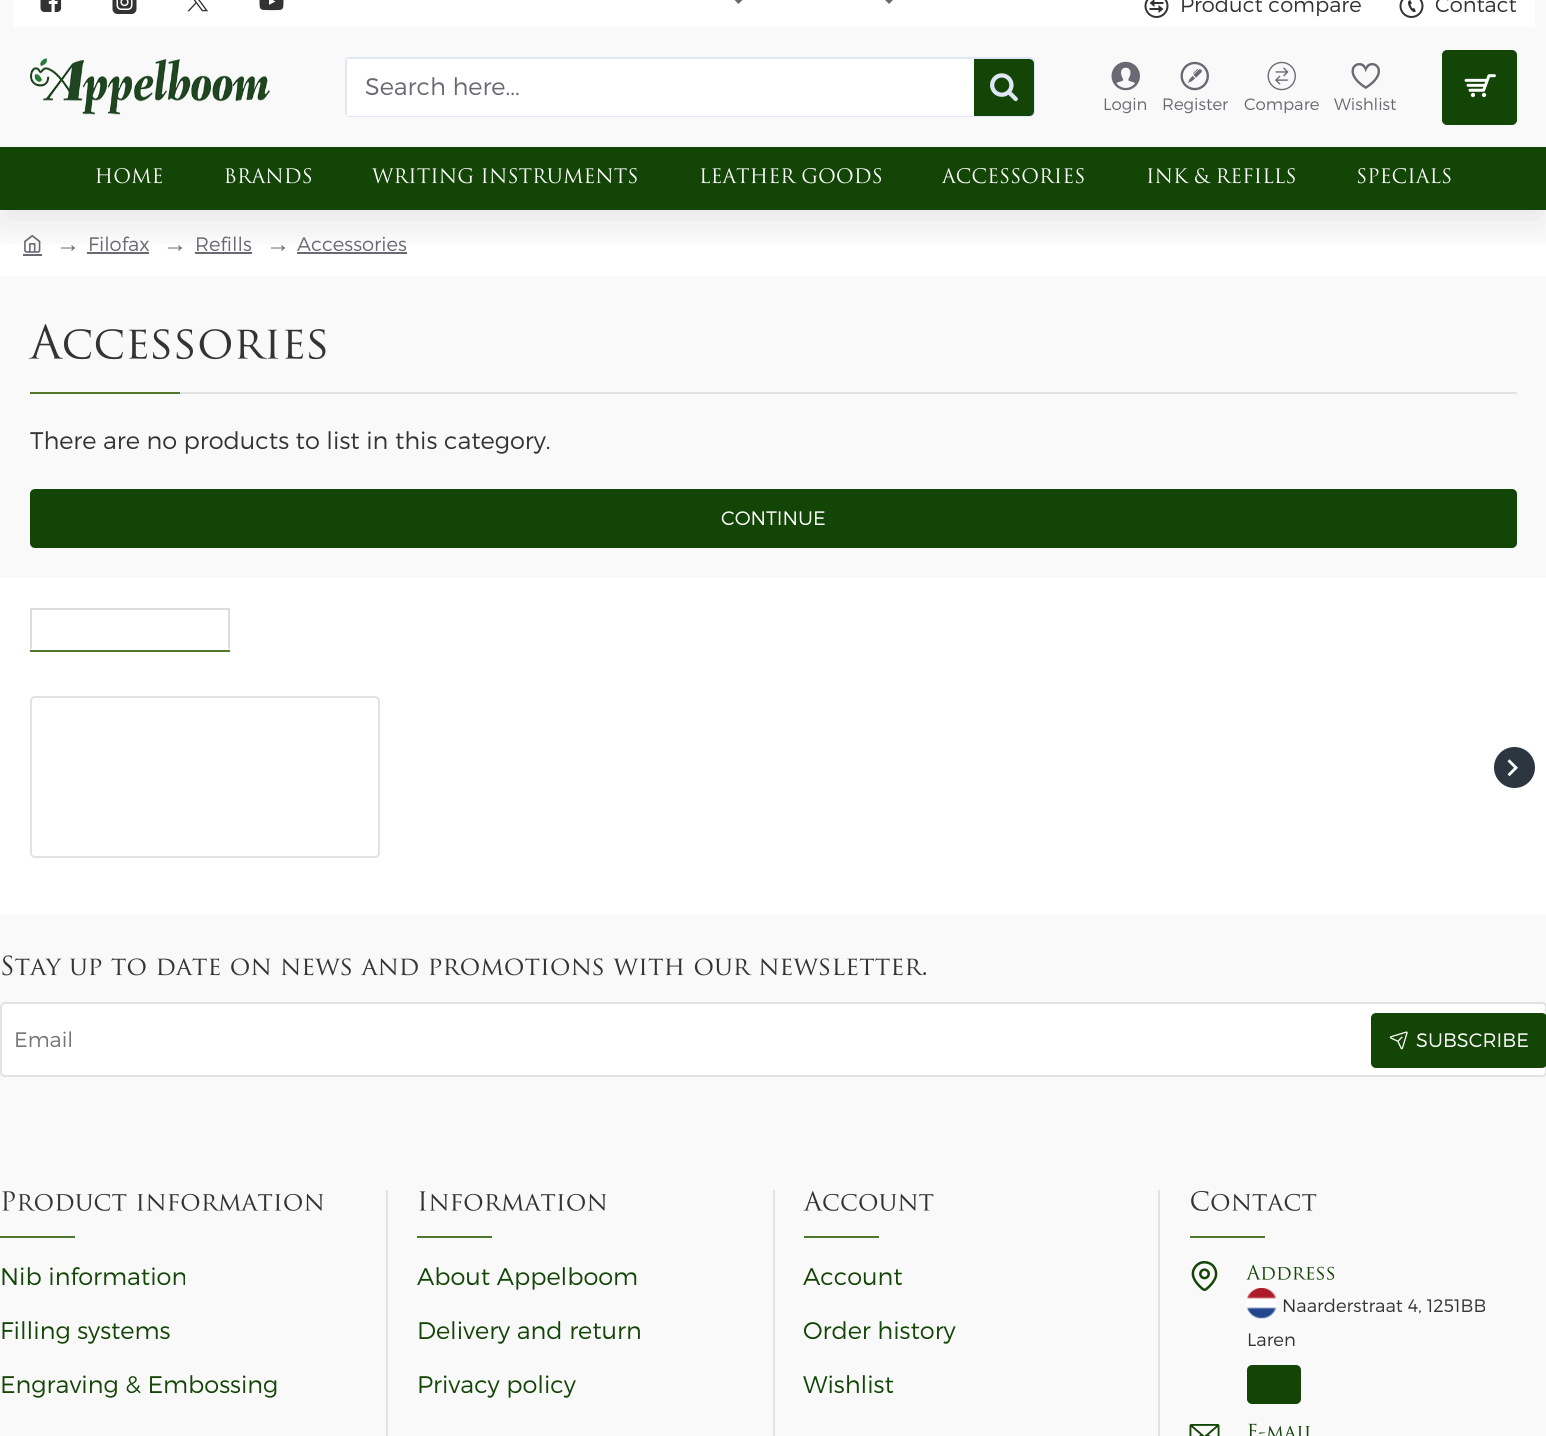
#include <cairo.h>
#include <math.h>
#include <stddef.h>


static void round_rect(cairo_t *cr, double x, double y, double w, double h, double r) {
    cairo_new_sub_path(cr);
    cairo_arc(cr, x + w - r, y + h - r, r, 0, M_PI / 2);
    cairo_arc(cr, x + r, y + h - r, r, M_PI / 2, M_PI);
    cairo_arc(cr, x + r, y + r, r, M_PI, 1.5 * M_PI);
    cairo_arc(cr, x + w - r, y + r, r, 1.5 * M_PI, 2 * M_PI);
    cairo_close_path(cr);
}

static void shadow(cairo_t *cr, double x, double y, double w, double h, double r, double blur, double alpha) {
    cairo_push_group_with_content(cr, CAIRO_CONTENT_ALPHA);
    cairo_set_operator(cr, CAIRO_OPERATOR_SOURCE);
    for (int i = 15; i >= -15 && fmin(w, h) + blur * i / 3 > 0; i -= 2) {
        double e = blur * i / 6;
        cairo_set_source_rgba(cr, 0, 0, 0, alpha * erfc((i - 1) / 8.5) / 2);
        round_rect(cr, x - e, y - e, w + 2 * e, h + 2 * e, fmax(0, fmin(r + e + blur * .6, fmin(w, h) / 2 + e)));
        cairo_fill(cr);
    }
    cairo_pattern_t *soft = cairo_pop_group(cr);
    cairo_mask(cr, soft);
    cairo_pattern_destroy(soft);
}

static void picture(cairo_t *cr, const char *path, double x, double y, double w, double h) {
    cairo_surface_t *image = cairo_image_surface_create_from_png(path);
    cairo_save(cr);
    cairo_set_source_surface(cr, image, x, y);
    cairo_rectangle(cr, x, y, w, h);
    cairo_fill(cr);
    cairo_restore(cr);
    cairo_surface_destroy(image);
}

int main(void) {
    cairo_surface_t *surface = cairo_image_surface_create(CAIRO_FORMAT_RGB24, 1546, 1436);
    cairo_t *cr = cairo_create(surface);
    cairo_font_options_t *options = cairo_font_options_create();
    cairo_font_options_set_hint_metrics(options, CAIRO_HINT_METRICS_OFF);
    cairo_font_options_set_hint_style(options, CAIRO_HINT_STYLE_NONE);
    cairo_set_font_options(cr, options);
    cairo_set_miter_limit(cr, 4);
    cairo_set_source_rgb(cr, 0.973, 0.973, 0.973);
    cairo_paint(cr);
    cairo_set_source_rgb(cr, 1, 1, 1);
    cairo_rectangle(cr, 0, 210, 1546, 66);
    cairo_fill(cr);
    cairo_set_source_rgb(cr, 0.412, 0.412, 0.451);
    cairo_rectangle(cr, 23, 254, 19, 2);
    cairo_fill(cr);
    picture(cr, "img21.png", 24, 235, 17, 18);
    cairo_rectangle(cr, 87, 252, 62, 2);
    cairo_fill(cr);
    cairo_rectangle(cr, 195, 252, 57, 2);
    cairo_fill(cr);
    cairo_rectangle(cr, 297, 252, 110, 2);
    cairo_fill(cr);
    cairo_save(cr);
    cairo_rectangle(cr, 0, 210, 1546, 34);
    cairo_clip(cr);
    cairo_set_source_rgb(cr, 0, 0, 0);
    shadow(cr, 0, -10, 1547, 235, 0, 22.5, 0.1);
    cairo_restore(cr);
    cairo_set_source_rgb(cr, 1, 1, 1);
    cairo_rectangle(cr, 14, 0, 1521, 27);
    cairo_fill(cr);
    picture(cr, "img1.png", 40, 0, 22, 12);
    picture(cr, "img2.png", 112, 0, 25, 14);
    picture(cr, "img3.png", 187, 0, 22, 12);
    picture(cr, "img4.png", 259, 0, 25, 11);
    cairo_set_source_rgb(cr, 0.412, 0.412, 0.451);
    cairo_new_path(cr);
    cairo_move_to(cr, 732.5, -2);
    cairo_line_to(cr, 744.5, -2);
    cairo_line_to(cr, 738.5, 4);
    cairo_close_path(cr);
    cairo_fill(cr);
    cairo_new_path(cr);
    cairo_move_to(cr, 883, -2);
    cairo_line_to(cr, 895, -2);
    cairo_line_to(cr, 889, 4);
    cairo_close_path(cr);
    cairo_fill(cr);
    picture(cr, "img5.png", 1144, 0, 25, 18);
    cairo_select_font_face(cr, "Montserrat Light", CAIRO_FONT_SLANT_NORMAL, CAIRO_FONT_WEIGHT_NORMAL);
    cairo_set_font_size(cr, 21);
    cairo_set_source_rgb(cr, 0.2, 0.2, 0.2);
    cairo_move_to(cr, 1180, 12);
    cairo_show_text(cr, "Product compare");
    picture(cr, "img6.png", 1399, 0, 25, 18);
    cairo_move_to(cr, 1435, 12);
    cairo_show_text(cr, "Contact");
    picture(cr, "img7.png", 30, 58, 240, 57);
    round_rect(cr, 346, 58, 688, 58, 4);
    cairo_set_source_rgb(cr, 0.875, 0.906, 0.965);
    cairo_stroke(cr);
    cairo_set_source_rgb(cr, 1, 1, 1);
    cairo_rectangle(cr, 347, 59, 627, 57);
    cairo_fill(cr);
    cairo_set_font_size(cr, 24);
    cairo_set_source_rgb(cr, 0.412, 0.412, 0.451);
    cairo_move_to(cr, 365, 95);
    cairo_show_text(cr, "Search here...");
    cairo_set_source_rgb(cr, 0.075, 0.271, 0.024);
    cairo_new_path(cr);
    cairo_move_to(cr, 974, 59);
    cairo_line_to(cr, 1029, 59);
    cairo_curve_to(cr, 1032, 59, 1034, 61, 1034, 64);
    cairo_line_to(cr, 1034, 111);
    cairo_curve_to(cr, 1034, 114, 1032, 116, 1029, 116);
    cairo_line_to(cr, 974, 116);
    cairo_close_path(cr);
    cairo_fill(cr);
    picture(cr, "img8.png", 990, 73, 28, 29);
    picture(cr, "img9.png", 1111, 61, 29, 30);
    cairo_set_font_size(cr, 16.5);
    cairo_set_source_rgb(cr, 0.412, 0.412, 0.451);
    cairo_move_to(cr, 1103, 110);
    cairo_show_text(cr, "Login");
    picture(cr, "img10.png", 1180, 61, 29, 30);
    cairo_move_to(cr, 1162, 110);
    cairo_show_text(cr, "Register");
    picture(cr, "img11.png", 1267, 61, 29, 30);
    cairo_move_to(cr, 1244, 110);
    cairo_show_text(cr, "Compare");
    picture(cr, "img12.png", 1351, 63, 29, 26);
    cairo_move_to(cr, 1334, 110);
    cairo_show_text(cr, "Wishlist");
    cairo_set_source_rgb(cr, 0.075, 0.271, 0.024);
    round_rect(cr, 1442, 50, 75, 75, 5);
    cairo_fill(cr);
    picture(cr, "img13.png", 1464, 74, 32, 24);
    cairo_rectangle(cr, 0, 147, 1546, 63);
    cairo_fill(cr);
    picture(cr, "img14.png", 96, 168, 66, 16);
    picture(cr, "img15.png", 225, 168, 86, 16);
    picture(cr, "img16.png", 372, 168, 265, 16);
    picture(cr, "img17.png", 700, 168, 181, 16);
    picture(cr, "img18.png", 942, 168, 142, 16);
    picture(cr, "img19.png", 1148, 168, 147, 16);
    picture(cr, "img20.png", 1357, 168, 94, 16);
    cairo_select_font_face(cr, "Liberation Serif", CAIRO_FONT_SLANT_NORMAL, CAIRO_FONT_WEIGHT_NORMAL);
    cairo_set_font_size(cr, 24);
    cairo_set_source_rgb(cr, 0.412, 0.412, 0.451);
    cairo_move_to(cr, 56, 252);
    cairo_show_text(cr, "→");
    cairo_select_font_face(cr, "Montserrat Light", CAIRO_FONT_SLANT_NORMAL, CAIRO_FONT_WEIGHT_NORMAL);
    cairo_set_font_size(cr, 19.5);
    cairo_move_to(cr, 88, 251);
    cairo_show_text(cr, "Filofax");
    cairo_select_font_face(cr, "Liberation Serif", CAIRO_FONT_SLANT_NORMAL, CAIRO_FONT_WEIGHT_NORMAL);
    cairo_set_font_size(cr, 24);
    cairo_move_to(cr, 163, 252);
    cairo_show_text(cr, "→");
    cairo_select_font_face(cr, "Montserrat Light", CAIRO_FONT_SLANT_NORMAL, CAIRO_FONT_WEIGHT_NORMAL);
    cairo_set_font_size(cr, 19.5);
    cairo_move_to(cr, 195, 251);
    cairo_show_text(cr, "Refills");
    cairo_select_font_face(cr, "Liberation Serif", CAIRO_FONT_SLANT_NORMAL, CAIRO_FONT_WEIGHT_NORMAL);
    cairo_set_font_size(cr, 24);
    cairo_move_to(cr, 266, 252);
    cairo_show_text(cr, "→");
    cairo_select_font_face(cr, "Montserrat Light", CAIRO_FONT_SLANT_NORMAL, CAIRO_FONT_WEIGHT_NORMAL);
    cairo_set_font_size(cr, 19.5);
    cairo_move_to(cr, 297, 251);
    cairo_show_text(cr, "Accessories");
    cairo_set_source_rgb(cr, 0.886, 0.886, 0.886);
    cairo_rectangle(cr, 180, 392, 1337, 2);
    cairo_fill(cr);
    picture(cr, "img22.png", 28, 324, 298, 36);
    cairo_set_source_rgb(cr, 0.31, 0.467, 0.176);
    cairo_rectangle(cr, 30, 392, 150, 2);
    cairo_fill(cr);
    cairo_set_font_size(cr, 24);
    cairo_set_source_rgb(cr, 0.2, 0.2, 0.2);
    cairo_move_to(cr, 30, 449);
    cairo_show_text(cr, "There are no products to list in this category.");
    cairo_set_source_rgb(cr, 0.075, 0.271, 0.024);
    round_rect(cr, 30, 489, 1487, 59, 5);
    cairo_fill(cr);
    cairo_set_font_size(cr, 19.5);
    cairo_set_source_rgb(cr, 1, 1, 1);
    cairo_move_to(cr, 721, 525);
    cairo_show_text(cr, "CONTINUE");
    cairo_rectangle(cr, 0, 578, 1546, 336);
    cairo_fill(cr);
    cairo_set_source_rgb(cr, 0.31, 0.467, 0.176);
    cairo_rectangle(cr, 30, 650, 200, 2);
    cairo_fill(cr);
    cairo_set_source_rgb(cr, 0.867, 0.867, 0.867);
    cairo_rectangle(cr, 30, 608, 200, 2);
    cairo_fill(cr);
    cairo_new_path(cr);
    cairo_move_to(cr, 230, 608);
    cairo_line_to(cr, 230, 650);
    cairo_line_to(cr, 228, 648);
    cairo_line_to(cr, 228, 609);
    cairo_close_path(cr);
    cairo_fill(cr);
    cairo_new_path(cr);
    cairo_move_to(cr, 30, 650);
    cairo_line_to(cr, 30, 608);
    cairo_line_to(cr, 32, 609);
    cairo_line_to(cr, 32, 648);
    cairo_close_path(cr);
    cairo_fill(cr);
    round_rect(cr, 31, 697, 348, 160, 4);
    cairo_set_source_rgb(cr, 0.886, 0.886, 0.886);
    cairo_stroke(cr);
    cairo_set_source_rgb(cr, 0.173, 0.212, 0.251);
    cairo_arc(cr, 1514.5, 767.5, 23.5, 0, 2 * M_PI);
    cairo_fill_preserve(cr);
    cairo_set_source_rgb(cr, 1, 1, 1);
    cairo_set_line_width(cr, 6);
    cairo_stroke(cr);
    picture(cr, "img23.png", 1507, 759, 11, 18);
    picture(cr, "img24.png", 2, 955, 924, 21);
    round_rect(cr, 1, 1003, 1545, 73, 4);
    cairo_fill_preserve(cr);
    cairo_set_source_rgb(cr, 0.886, 0.886, 0.886);
    cairo_set_line_width(cr, 2);
    cairo_stroke(cr);
    cairo_set_font_size(cr, 21);
    cairo_set_source_rgb(cr, 0.459, 0.459, 0.459);
    cairo_move_to(cr, 14, 1047);
    cairo_show_text(cr, "Email");
    cairo_set_source_rgb(cr, 0.075, 0.271, 0.024);
    round_rect(cr, 1371, 1013, 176, 55, 5);
    cairo_fill(cr);
    picture(cr, "img25.png", 1389, 1031, 19, 19);
    cairo_set_font_size(cr, 19.5);
    cairo_set_source_rgb(cr, 1, 1, 1);
    cairo_move_to(cr, 1416, 1047);
    cairo_show_text(cr, "SUBSCRIBE");
    cairo_set_source_rgb(cr, 0.886, 0.886, 0.886);
    cairo_rectangle(cr, 386, 1190, 2, 246);
    cairo_fill(cr);
    picture(cr, "img26.png", 2, 1191, 322, 20);
    cairo_set_source_rgb(cr, 0.31, 0.467, 0.176);
    cairo_rectangle(cr, 0, 1236, 75, 2);
    cairo_fill(cr);
    cairo_set_font_size(cr, 24);
    cairo_set_source_rgb(cr, 0.075, 0.271, 0.024);
    cairo_move_to(cr, 0, 1285);
    cairo_show_text(cr, "Nib information");
    cairo_move_to(cr, 0, 1339);
    cairo_show_text(cr, "Filling systems");
    cairo_move_to(cr, 0, 1393);
    cairo_show_text(cr, "Engraving & Embossing");
    cairo_set_source_rgb(cr, 0.886, 0.886, 0.886);
    cairo_rectangle(cr, 773, 1190, 2, 246);
    cairo_fill(cr);
    picture(cr, "img27.png", 419, 1191, 188, 20);
    cairo_set_source_rgb(cr, 0.31, 0.467, 0.176);
    cairo_rectangle(cr, 417, 1236, 75, 2);
    cairo_fill(cr);
    cairo_set_source_rgb(cr, 0.075, 0.271, 0.024);
    cairo_move_to(cr, 417, 1285);
    cairo_show_text(cr, "About Appelboom");
    cairo_move_to(cr, 417, 1339);
    cairo_show_text(cr, "Delivery and return");
    cairo_move_to(cr, 417, 1393);
    cairo_show_text(cr, "Privacy policy");
    cairo_set_source_rgb(cr, 0.886, 0.886, 0.886);
    cairo_rectangle(cr, 1158, 1190, 2, 246);
    cairo_fill(cr);
    picture(cr, "img28.png", 803, 1191, 131, 20);
    cairo_set_source_rgb(cr, 0.31, 0.467, 0.176);
    cairo_rectangle(cr, 804, 1236, 75, 2);
    cairo_fill(cr);
    cairo_set_source_rgb(cr, 0.075, 0.271, 0.024);
    cairo_move_to(cr, 803, 1285);
    cairo_show_text(cr, "Account");
    cairo_move_to(cr, 803, 1339);
    cairo_show_text(cr, "Order history");
    cairo_move_to(cr, 803, 1393);
    cairo_show_text(cr, "Wishlist");
    picture(cr, "img29.png", 1191, 1190, 126, 21);
    cairo_set_source_rgb(cr, 0.31, 0.467, 0.176);
    cairo_rectangle(cr, 1190, 1236, 75, 2);
    cairo_fill(cr);
    picture(cr, "img30.png", 1191, 1261, 27, 30);
    picture(cr, "img31.png", 1246, 1264, 89, 16);
    picture(cr, "img32.png", 1246, 1288, 31, 31);
    cairo_set_font_size(cr, 18);
    cairo_set_source_rgb(cr, 0.2, 0.2, 0.2);
    cairo_move_to(cr, 1282, 1312);
    cairo_show_text(cr, "Naarderstraat 4, 1251BB");
    cairo_move_to(cr, 1247, 1346);
    cairo_show_text(cr, "Laren");
    cairo_set_source_rgb(cr, 0.075, 0.271, 0.024);
    round_rect(cr, 1247, 1365, 54, 39, 5);
    cairo_fill(cr);
    picture(cr, "img33.png", 1189, 1424, 31, 12);
    picture(cr, "img34.png", 1248, 1423, 62, 13);
    cairo_surface_write_to_png(surface, "page.png");
    cairo_font_options_destroy(options);
    cairo_destroy(cr);
    cairo_surface_destroy(surface);
    return 0;
}
